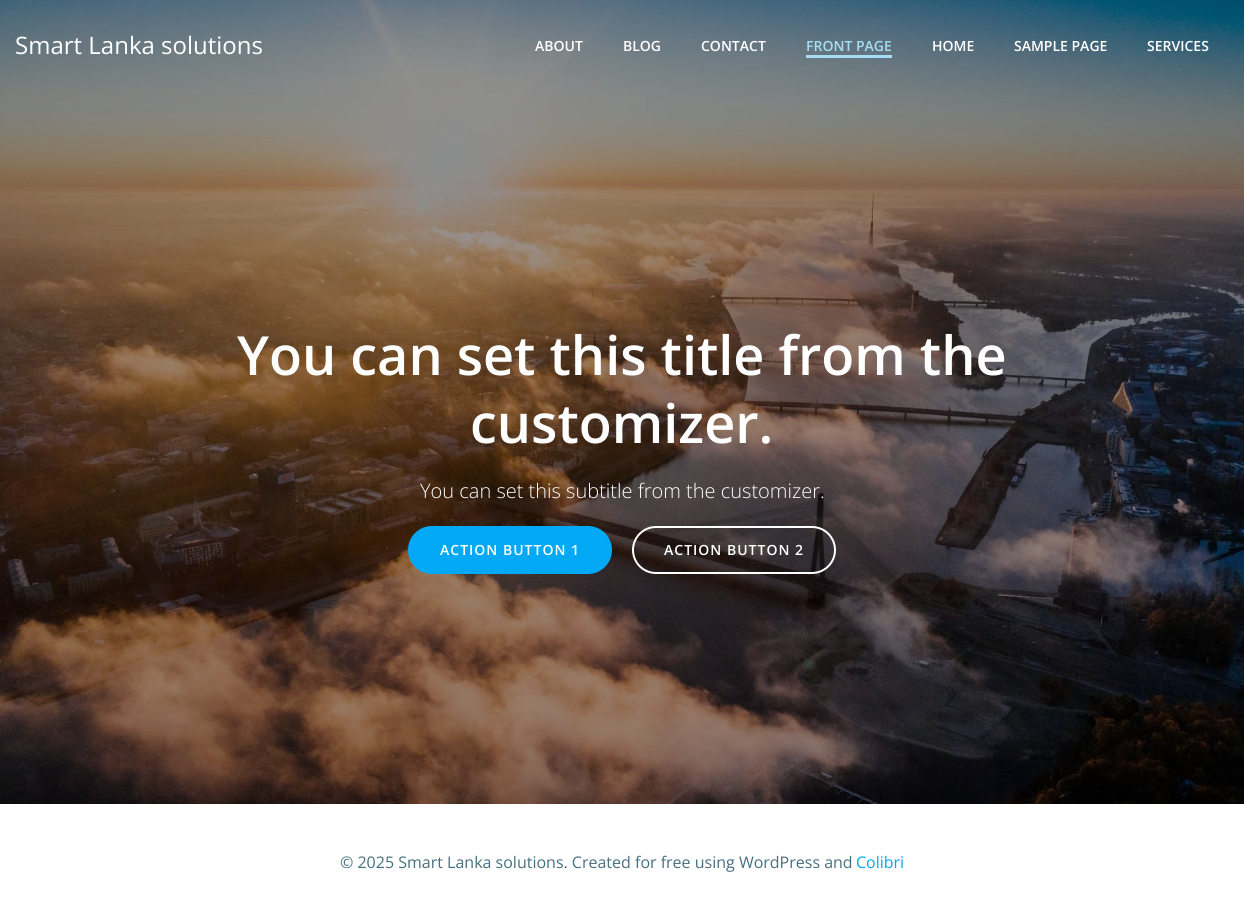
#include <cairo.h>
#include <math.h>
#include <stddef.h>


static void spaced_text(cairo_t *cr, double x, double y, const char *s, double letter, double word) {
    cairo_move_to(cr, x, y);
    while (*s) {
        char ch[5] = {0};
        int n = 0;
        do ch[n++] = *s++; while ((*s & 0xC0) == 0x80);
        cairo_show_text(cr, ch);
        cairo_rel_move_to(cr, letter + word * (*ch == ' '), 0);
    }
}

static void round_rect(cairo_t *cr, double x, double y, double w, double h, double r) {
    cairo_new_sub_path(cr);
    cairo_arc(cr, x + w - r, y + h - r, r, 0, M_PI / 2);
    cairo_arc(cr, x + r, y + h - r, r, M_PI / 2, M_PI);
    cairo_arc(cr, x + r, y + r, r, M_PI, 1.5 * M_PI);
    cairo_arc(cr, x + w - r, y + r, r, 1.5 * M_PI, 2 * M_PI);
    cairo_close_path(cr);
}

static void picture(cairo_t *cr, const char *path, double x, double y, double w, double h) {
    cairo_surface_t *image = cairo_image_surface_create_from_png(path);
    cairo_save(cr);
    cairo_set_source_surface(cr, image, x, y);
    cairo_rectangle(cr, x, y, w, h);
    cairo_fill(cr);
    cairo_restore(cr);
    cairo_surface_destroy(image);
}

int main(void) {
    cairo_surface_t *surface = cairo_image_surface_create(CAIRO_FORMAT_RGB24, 1244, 921);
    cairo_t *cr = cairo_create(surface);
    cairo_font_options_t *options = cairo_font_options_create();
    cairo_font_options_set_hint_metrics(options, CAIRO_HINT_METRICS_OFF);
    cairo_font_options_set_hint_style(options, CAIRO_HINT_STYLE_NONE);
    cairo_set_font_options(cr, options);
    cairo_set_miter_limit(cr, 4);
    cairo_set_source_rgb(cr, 1, 1, 1);
    cairo_paint(cr);
    picture(cr, "img1.png", 0, 0, 1244, 804);
    cairo_select_font_face(cr, "Open Sans", CAIRO_FONT_SLANT_NORMAL, CAIRO_FONT_WEIGHT_NORMAL);
    cairo_set_font_size(cr, 24);
    cairo_set_source_rgb(cr, 1, 1, 1);
    cairo_move_to(cr, 15, 54);
    cairo_show_text(cr, "Smart Lanka solutions");
    cairo_select_font_face(cr, "Open Sans SemiBold", CAIRO_FONT_SLANT_NORMAL, CAIRO_FONT_WEIGHT_NORMAL);
    cairo_set_font_size(cr, 14);
    cairo_move_to(cr, 535, 51);
    cairo_show_text(cr, "ABOUT");
    cairo_move_to(cr, 623, 51);
    cairo_show_text(cr, "BLOG");
    cairo_move_to(cr, 701, 51);
    cairo_show_text(cr, "CONTACT");
    cairo_set_source_rgb(cr, 0.651, 0.863, 0.957);
    cairo_move_to(cr, 806, 51);
    cairo_show_text(cr, "FRONT PAGE");
    cairo_rectangle(cr, 806, 55, 86, 3);
    cairo_fill(cr);
    cairo_set_source_rgb(cr, 1, 1, 1);
    cairo_move_to(cr, 932, 51);
    cairo_show_text(cr, "HOME");
    cairo_move_to(cr, 1014, 51);
    cairo_show_text(cr, "SAMPLE PAGE");
    cairo_move_to(cr, 1147, 51);
    cairo_show_text(cr, "SERVICES");
    cairo_set_font_size(cr, 54);
    cairo_move_to(cr, 237, 375);
    cairo_show_text(cr, "You can set this title from the");
    cairo_move_to(cr, 470, 443);
    cairo_show_text(cr, "customizer.");
    cairo_select_font_face(cr, "Open Sans Light", CAIRO_FONT_SLANT_NORMAL, CAIRO_FONT_WEIGHT_NORMAL);
    cairo_set_font_size(cr, 20);
    cairo_move_to(cr, 420, 498);
    cairo_show_text(cr, "You can set this subtitle from the customizer.");
    cairo_set_source_rgb(cr, 0.012, 0.663, 0.957);
    round_rect(cr, 409, 527, 202, 46, 23);
    cairo_fill_preserve(cr);
    cairo_stroke(cr);
    cairo_select_font_face(cr, "Open Sans SemiBold", CAIRO_FONT_SLANT_NORMAL, CAIRO_FONT_WEIGHT_NORMAL);
    cairo_set_font_size(cr, 14);
    cairo_set_source_rgb(cr, 1, 1, 1);
    spaced_text(cr, 440, 555, "ACTION BUTTON 1", 1, 0);
    round_rect(cr, 633, 527, 202, 46, 23);
    cairo_stroke(cr);
    spaced_text(cr, 664, 555, "ACTION BUTTON 2", 1, 0);
    cairo_select_font_face(cr, "Open Sans", CAIRO_FONT_SLANT_NORMAL, CAIRO_FONT_WEIGHT_NORMAL);
    cairo_set_font_size(cr, 16);
    cairo_set_source_rgb(cr, 0.275, 0.439, 0.498);
    cairo_move_to(cr, 340, 868);
    cairo_show_text(cr, "© 2025 Smart Lanka solutions. Created for free using WordPress and");
    cairo_set_source_rgb(cr, 0.012, 0.663, 0.957);
    cairo_move_to(cr, 856, 868);
    cairo_show_text(cr, "Colibri");
    cairo_surface_write_to_png(surface, "page.png");
    cairo_font_options_destroy(options);
    cairo_destroy(cr);
    cairo_surface_destroy(surface);
    return 0;
}
